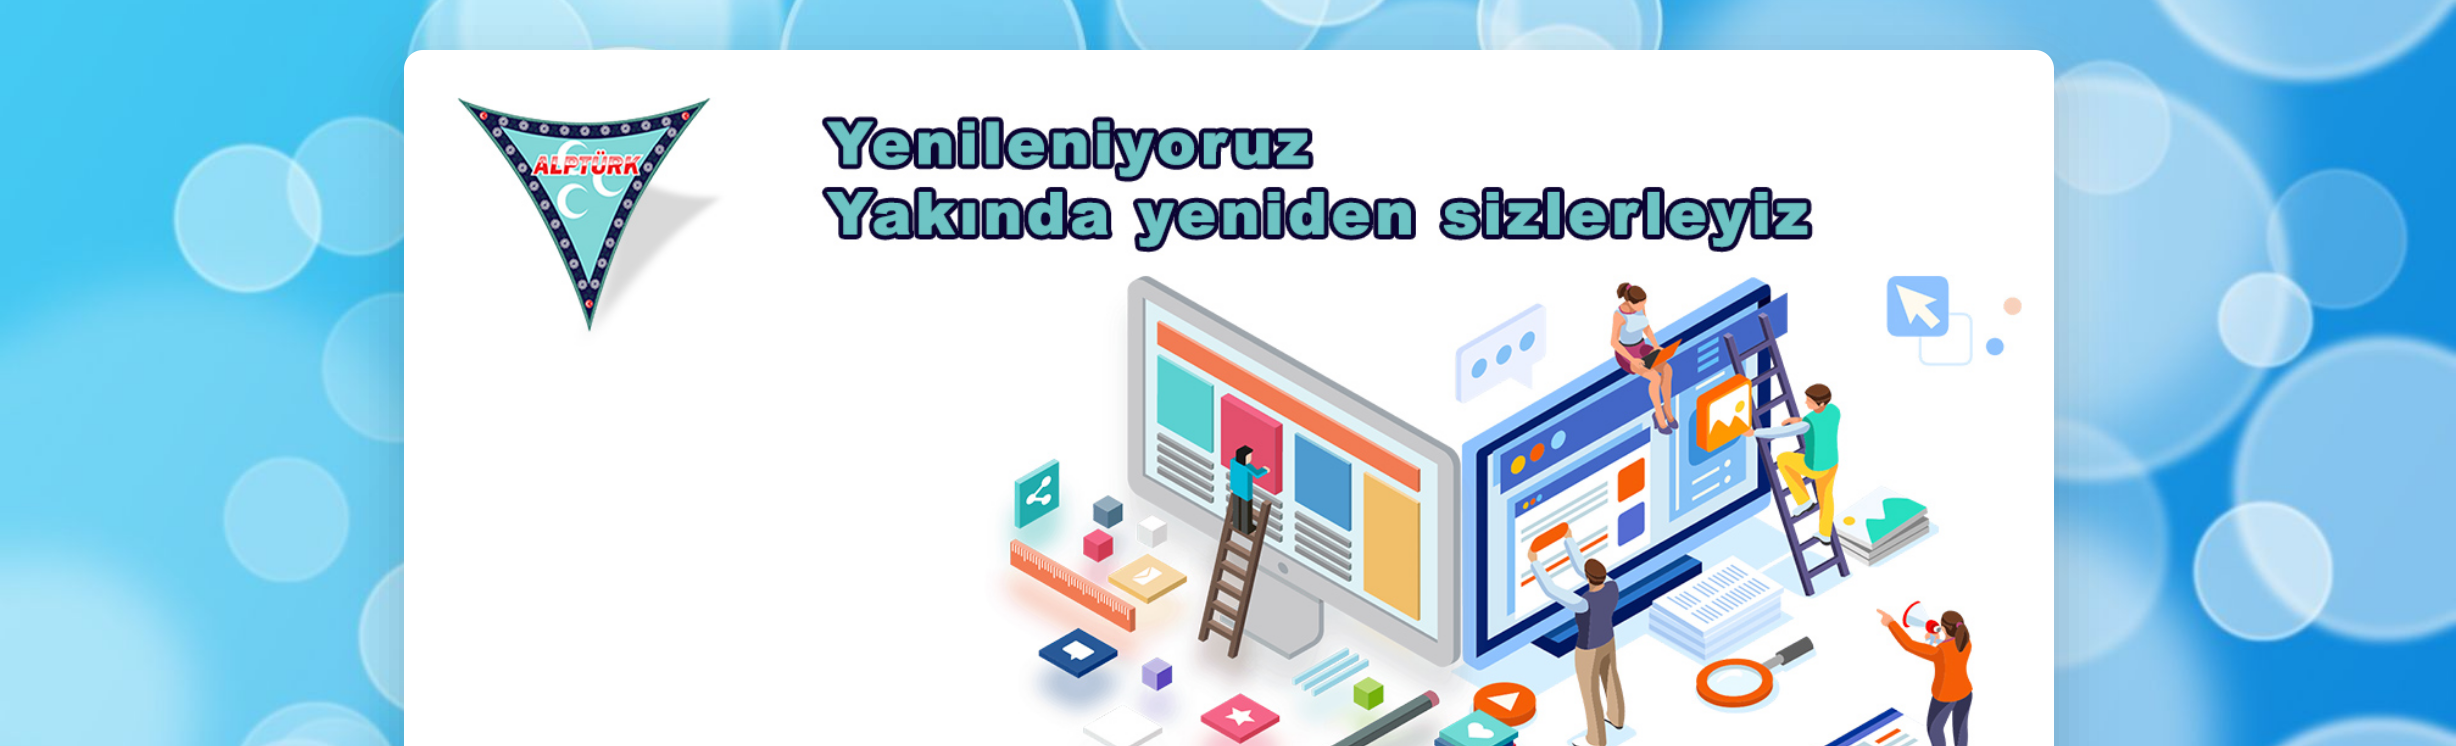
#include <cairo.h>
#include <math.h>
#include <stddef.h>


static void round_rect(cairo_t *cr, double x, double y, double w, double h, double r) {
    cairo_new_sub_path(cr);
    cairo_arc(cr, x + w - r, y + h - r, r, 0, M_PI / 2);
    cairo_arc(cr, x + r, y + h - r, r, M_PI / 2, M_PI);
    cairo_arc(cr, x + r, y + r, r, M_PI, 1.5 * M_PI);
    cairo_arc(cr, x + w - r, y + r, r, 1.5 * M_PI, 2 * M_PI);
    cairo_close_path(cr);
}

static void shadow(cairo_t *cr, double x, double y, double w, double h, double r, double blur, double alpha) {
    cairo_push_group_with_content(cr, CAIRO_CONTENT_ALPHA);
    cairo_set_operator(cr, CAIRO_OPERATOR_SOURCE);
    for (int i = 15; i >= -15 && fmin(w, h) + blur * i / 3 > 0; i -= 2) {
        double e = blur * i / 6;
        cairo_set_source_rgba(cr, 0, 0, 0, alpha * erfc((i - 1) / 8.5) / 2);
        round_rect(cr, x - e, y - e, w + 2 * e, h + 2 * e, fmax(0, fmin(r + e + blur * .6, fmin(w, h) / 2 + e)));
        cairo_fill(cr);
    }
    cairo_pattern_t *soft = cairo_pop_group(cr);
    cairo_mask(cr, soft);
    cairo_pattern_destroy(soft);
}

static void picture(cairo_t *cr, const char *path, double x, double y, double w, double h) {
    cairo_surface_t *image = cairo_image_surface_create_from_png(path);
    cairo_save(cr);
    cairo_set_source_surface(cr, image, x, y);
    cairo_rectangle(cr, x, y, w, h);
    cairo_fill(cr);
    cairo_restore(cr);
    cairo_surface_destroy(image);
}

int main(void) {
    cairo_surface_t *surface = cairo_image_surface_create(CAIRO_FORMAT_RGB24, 2456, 746);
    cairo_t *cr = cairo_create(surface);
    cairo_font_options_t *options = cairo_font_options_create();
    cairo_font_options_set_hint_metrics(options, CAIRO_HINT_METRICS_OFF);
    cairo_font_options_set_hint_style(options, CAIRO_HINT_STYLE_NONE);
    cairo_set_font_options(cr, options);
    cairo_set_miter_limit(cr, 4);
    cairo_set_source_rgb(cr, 1, 1, 1);
    cairo_paint(cr);
    picture(cr, "img1.png", 0, 0, 2456, 746);
    cairo_set_source_rgb(cr, 0, 0, 0);
    shadow(cr, 404, 70, 1650, 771, 19, 30, 0.18);
    cairo_set_source_rgb(cr, 1, 1, 1);
    round_rect(cr, 404, 50, 1650, 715, 19);
    cairo_fill(cr);
    picture(cr, "img2.png", 453, 97, 1569, 649);
    cairo_surface_write_to_png(surface, "page.png");
    cairo_font_options_destroy(options);
    cairo_destroy(cr);
    cairo_surface_destroy(surface);
    return 0;
}
